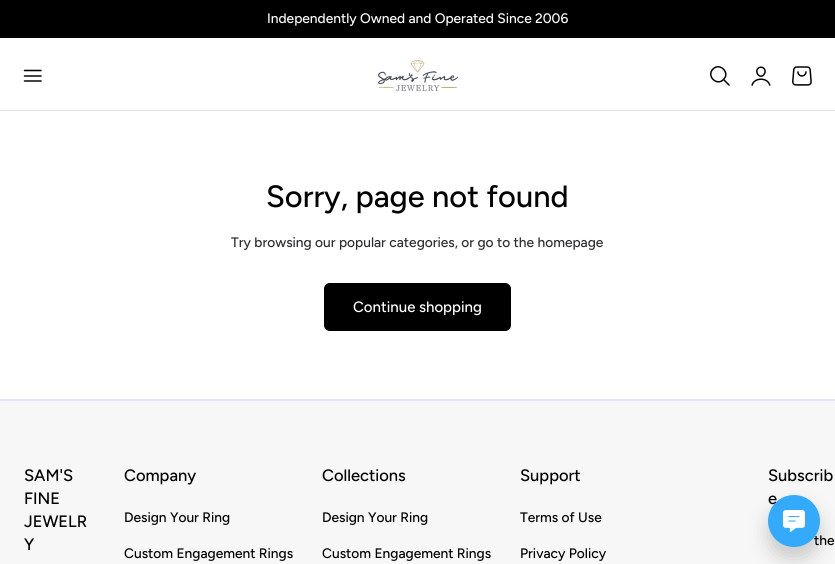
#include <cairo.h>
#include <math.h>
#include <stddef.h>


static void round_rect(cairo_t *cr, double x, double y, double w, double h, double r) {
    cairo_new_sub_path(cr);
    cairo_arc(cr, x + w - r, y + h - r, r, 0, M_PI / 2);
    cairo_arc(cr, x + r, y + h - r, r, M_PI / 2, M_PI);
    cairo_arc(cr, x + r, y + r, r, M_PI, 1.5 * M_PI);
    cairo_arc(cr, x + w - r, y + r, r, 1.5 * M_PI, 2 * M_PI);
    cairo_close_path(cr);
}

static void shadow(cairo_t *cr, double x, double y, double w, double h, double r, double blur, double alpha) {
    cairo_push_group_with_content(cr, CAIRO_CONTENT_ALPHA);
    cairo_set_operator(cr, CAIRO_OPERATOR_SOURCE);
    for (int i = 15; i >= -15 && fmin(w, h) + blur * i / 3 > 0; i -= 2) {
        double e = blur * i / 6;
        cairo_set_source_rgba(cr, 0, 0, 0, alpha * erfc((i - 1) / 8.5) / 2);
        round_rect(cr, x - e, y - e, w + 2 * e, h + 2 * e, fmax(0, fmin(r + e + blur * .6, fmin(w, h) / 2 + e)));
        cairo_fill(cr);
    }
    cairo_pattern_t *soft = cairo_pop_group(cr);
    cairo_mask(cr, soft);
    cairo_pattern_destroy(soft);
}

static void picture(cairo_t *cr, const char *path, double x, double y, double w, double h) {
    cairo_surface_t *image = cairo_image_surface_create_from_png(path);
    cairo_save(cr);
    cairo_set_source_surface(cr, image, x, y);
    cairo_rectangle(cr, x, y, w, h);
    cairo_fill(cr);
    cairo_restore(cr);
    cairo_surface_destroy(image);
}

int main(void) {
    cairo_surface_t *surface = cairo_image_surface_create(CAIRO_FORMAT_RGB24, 835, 564);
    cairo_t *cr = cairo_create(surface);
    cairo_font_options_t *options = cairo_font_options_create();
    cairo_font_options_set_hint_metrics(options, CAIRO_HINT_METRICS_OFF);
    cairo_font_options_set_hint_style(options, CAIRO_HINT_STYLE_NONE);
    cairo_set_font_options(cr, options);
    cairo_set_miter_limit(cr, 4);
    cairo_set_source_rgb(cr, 1, 1, 1);
    cairo_paint(cr);
    cairo_set_source_rgb(cr, 0, 0, 0);
    cairo_rectangle(cr, 0, 0, 835, 38);
    cairo_fill(cr);
    cairo_select_font_face(cr, "Figtree Medium", CAIRO_FONT_SLANT_NORMAL, CAIRO_FONT_WEIGHT_NORMAL);
    cairo_set_font_size(cr, 13.75);
    cairo_set_source_rgb(cr, 1, 1, 1);
    cairo_move_to(cr, 267, 23);
    cairo_show_text(cr, "Independently Owned and Operated Since 2006");
    cairo_set_source_rgb(cr, 0.902, 0.902, 0.902);
    cairo_rectangle(cr, 0, 110, 835, 1);
    cairo_fill(cr);
    cairo_new_path(cr);
    cairo_move_to(cr, 24.5, 70.5);
    cairo_line_to(cr, 41, 70.5);
    cairo_move_to(cr, 24.5, 76);
    cairo_line_to(cr, 41, 76);
    cairo_move_to(cr, 24.5, 81);
    cairo_line_to(cr, 41, 81);
    cairo_set_source_rgb(cr, 0, 0, 0);
    cairo_set_line_width(cr, 1.5);
    cairo_set_line_cap(cr, CAIRO_LINE_CAP_ROUND);
    cairo_set_line_join(cr, CAIRO_LINE_JOIN_ROUND);
    cairo_stroke(cr);
    picture(cr, "img1.png", 377, 60, 81, 31);
    cairo_new_path(cr);
    cairo_move_to(cr, 729, 85);
    cairo_line_to(cr, 723.5, 79.5);
    cairo_move_to(cr, 723.5, 79.5);
    cairo_curve_to(cr, 730.5, 73, 720, 62, 713, 69);
    cairo_curve_to(cr, 706, 76, 717, 86.5, 723.5, 79.5);
    cairo_close_path(cr);
    cairo_stroke(cr);
    picture(cr, "img2.png", 751, 66, 20, 20);
    picture(cr, "img3.png", 792, 66, 20, 20);
    cairo_set_font_size(cr, 30.75);
    cairo_move_to(cr, 266, 207);
    cairo_show_text(cr, "Sorry, page not found");
    cairo_set_font_size(cr, 13.75);
    cairo_set_source_rgb(cr, 0.173, 0.176, 0.18);
    cairo_move_to(cr, 231, 247);
    cairo_show_text(cr, "Try browsing our popular categories, or go to the homepage");
    cairo_set_source_rgb(cr, 0, 0, 0);
    round_rect(cr, 324.5, 283.5, 186, 47, 5.5);
    cairo_fill_preserve(cr);
    cairo_set_line_width(cr, 1);
    cairo_set_line_cap(cr, CAIRO_LINE_CAP_BUTT);
    cairo_set_line_join(cr, CAIRO_LINE_JOIN_MITER);
    cairo_stroke(cr);
    cairo_set_font_size(cr, 15);
    cairo_set_source_rgb(cr, 1, 1, 1);
    cairo_move_to(cr, 353, 312);
    cairo_show_text(cr, "Continue shopping");
    cairo_set_source_rgb(cr, 0.878, 0.902, 0.957);
    cairo_rectangle(cr, 0, 399, 835, 2);
    cairo_fill(cr);
    cairo_set_source_rgb(cr, 0.965, 0.965, 0.965);
    cairo_rectangle(cr, 0, 401, 835, 163);
    cairo_fill(cr);
    cairo_set_font_size(cr, 16.5);
    cairo_set_source_rgb(cr, 0, 0, 0);
    cairo_move_to(cr, 24, 481);
    cairo_show_text(cr, "SAM'S");
    cairo_move_to(cr, 24, 504);
    cairo_show_text(cr, "FINE");
    cairo_move_to(cr, 24, 527);
    cairo_show_text(cr, "JEWELR");
    cairo_move_to(cr, 24, 550);
    cairo_show_text(cr, "Y");
    cairo_move_to(cr, 124, 481);
    cairo_show_text(cr, "Company");
    cairo_set_font_size(cr, 13.75);
    cairo_move_to(cr, 124, 522);
    cairo_show_text(cr, "Design Your Ring");
    cairo_move_to(cr, 124, 558);
    cairo_show_text(cr, "Custom Engagement Rings");
    cairo_set_font_size(cr, 16.5);
    cairo_move_to(cr, 322, 481);
    cairo_show_text(cr, "Collections");
    cairo_set_font_size(cr, 13.75);
    cairo_move_to(cr, 322, 522);
    cairo_show_text(cr, "Design Your Ring");
    cairo_move_to(cr, 322, 558);
    cairo_show_text(cr, "Custom Engagement Rings");
    cairo_set_font_size(cr, 16.5);
    cairo_move_to(cr, 520, 481);
    cairo_show_text(cr, "Support");
    cairo_set_font_size(cr, 13.75);
    cairo_move_to(cr, 520, 522);
    cairo_show_text(cr, "Terms of Use");
    cairo_move_to(cr, 520, 558);
    cairo_show_text(cr, "Privacy Policy");
    cairo_set_font_size(cr, 16.5);
    cairo_move_to(cr, 768, 481);
    cairo_show_text(cr, "Subscrib");
    cairo_move_to(cr, 768, 504);
    cairo_show_text(cr, "e");
    cairo_set_font_size(cr, 13.75);
    cairo_move_to(cr, 814, 545);
    cairo_show_text(cr, "the");
    cairo_set_source_rgb(cr, 0, 0, 0);
    shadow(cr, 768, 507, 52, 52, 26, 9.5, 0.18);
    cairo_set_source_rgb(cr, 0.2, 0.667, 0.988);
    cairo_arc(cr, 794, 521, 26, 0, 2 * M_PI);
    cairo_fill(cr);
    picture(cr, "img4.png", 783, 510, 22, 22);
    cairo_surface_write_to_png(surface, "page.png");
    cairo_font_options_destroy(options);
    cairo_destroy(cr);
    cairo_surface_destroy(surface);
    return 0;
}
